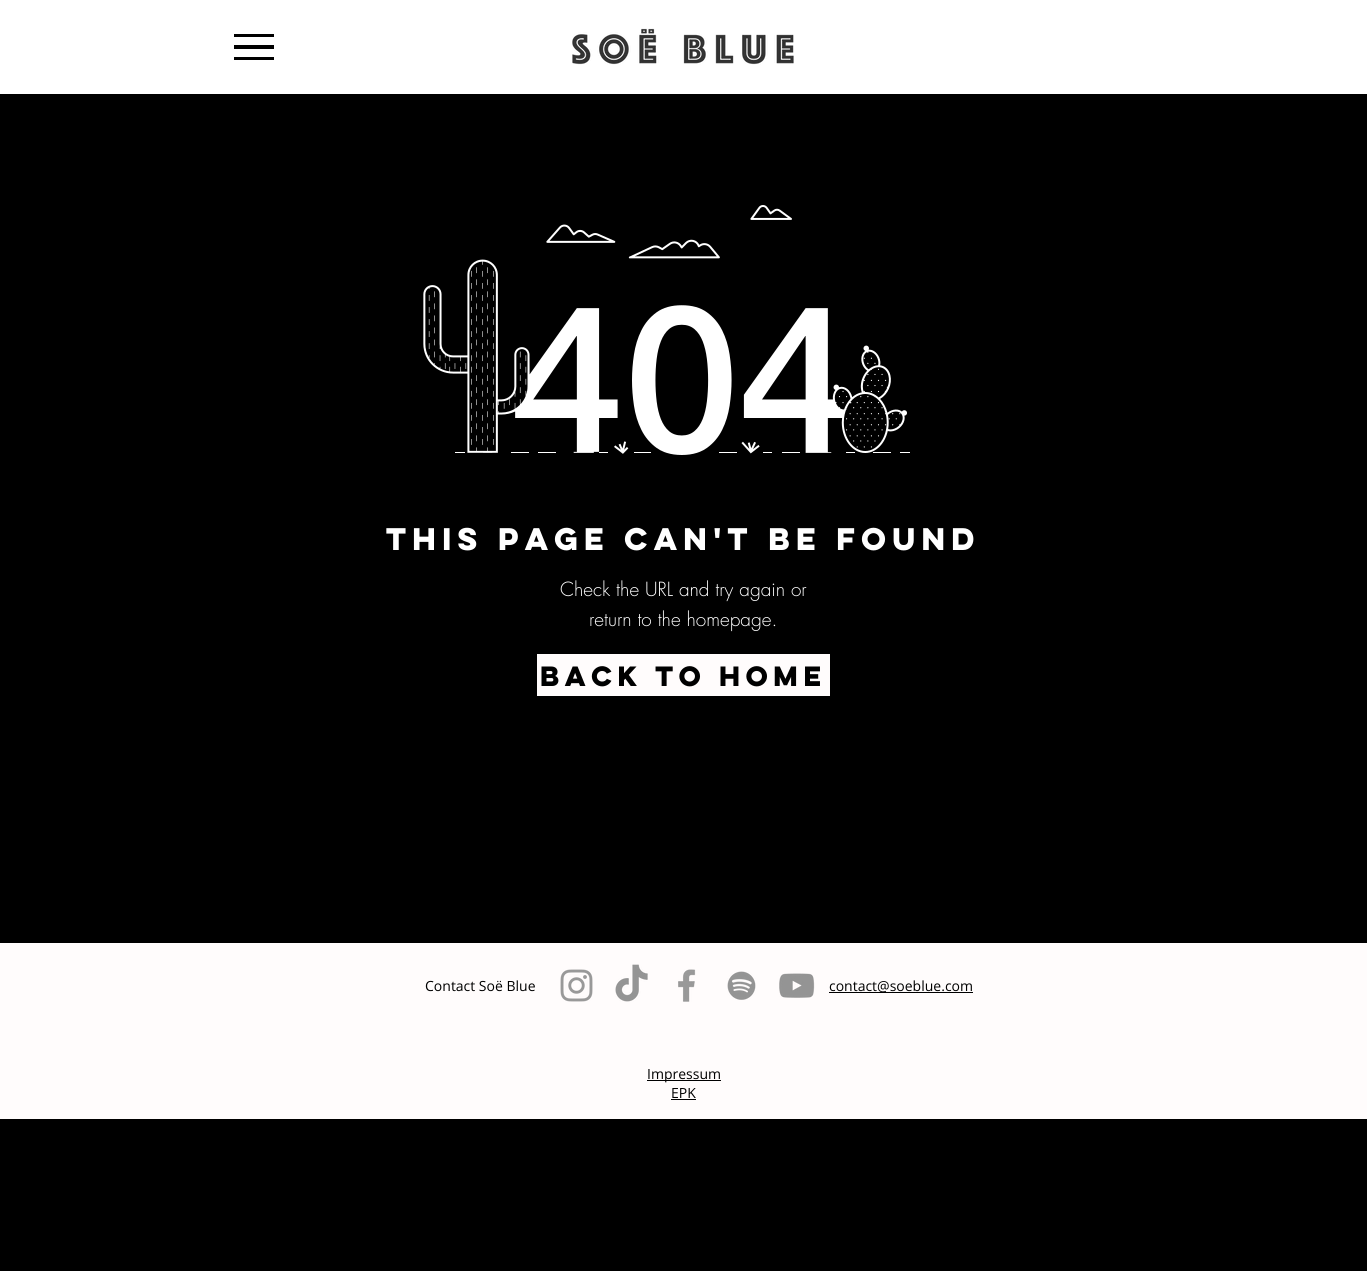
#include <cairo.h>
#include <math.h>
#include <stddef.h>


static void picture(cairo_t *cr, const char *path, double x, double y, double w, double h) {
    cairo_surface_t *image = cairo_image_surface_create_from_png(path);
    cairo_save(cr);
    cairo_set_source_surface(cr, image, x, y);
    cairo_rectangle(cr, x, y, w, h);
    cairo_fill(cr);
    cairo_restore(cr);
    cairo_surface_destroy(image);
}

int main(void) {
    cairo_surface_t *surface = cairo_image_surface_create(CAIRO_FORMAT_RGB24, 1367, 1271);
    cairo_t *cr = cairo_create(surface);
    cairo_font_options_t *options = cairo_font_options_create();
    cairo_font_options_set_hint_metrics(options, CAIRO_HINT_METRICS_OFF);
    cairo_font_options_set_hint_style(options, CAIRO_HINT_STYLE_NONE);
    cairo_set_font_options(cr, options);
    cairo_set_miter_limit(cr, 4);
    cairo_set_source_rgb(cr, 0, 0, 0);
    cairo_paint(cr);
    cairo_set_source_rgb(cr, 1, 1, 1);
    cairo_rectangle(cr, 0, 0, 1367, 94);
    cairo_fill(cr);
    cairo_set_source_rgb(cr, 0, 0, 0);
    cairo_rectangle(cr, 234, 57, 40, 3);
    cairo_fill(cr);
    cairo_rectangle(cr, 234, 34, 40, 3);
    cairo_fill(cr);
    cairo_rectangle(cr, 234, 45, 40, 4);
    cairo_fill(cr);
    picture(cr, "img1.png", 572, 28, 222, 37);
    picture(cr, "img2.png", 423, 205, 487, 250);
    cairo_select_font_face(cr, "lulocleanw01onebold", CAIRO_FONT_SLANT_NORMAL, CAIRO_FONT_WEIGHT_BOLD);
    cairo_set_font_size(cr, 28);
    cairo_set_source_rgb(cr, 1, 1, 1);
    cairo_move_to(cr, 386, 550);
    cairo_show_text(cr, "This page can't be found");
    cairo_select_font_face(cr, "futura Light", CAIRO_FONT_SLANT_NORMAL, CAIRO_FONT_WEIGHT_NORMAL);
    cairo_set_font_size(cr, 19);
    cairo_move_to(cr, 560, 596);
    cairo_show_text(cr, "Check the URL and try again or");
    cairo_move_to(cr, 589, 626);
    cairo_show_text(cr, "return to the homepage.");
    cairo_set_source_rgb(cr, 1, 0.988, 0.988);
    cairo_rectangle(cr, 537, 654, 293, 42);
    cairo_fill(cr);
    cairo_select_font_face(cr, "lulocleanw01onebold", CAIRO_FONT_SLANT_NORMAL, CAIRO_FONT_WEIGHT_BOLD);
    cairo_set_font_size(cr, 25);
    cairo_set_source_rgb(cr, 0, 0, 0);
    cairo_move_to(cr, 540, 686);
    cairo_show_text(cr, "BACK TO HOME");
    cairo_set_source_rgb(cr, 1, 0.988, 0.988);
    cairo_rectangle(cr, 0, 943, 1367, 176);
    cairo_fill(cr);
    cairo_select_font_face(cr, "Open Sans", CAIRO_FONT_SLANT_NORMAL, CAIRO_FONT_WEIGHT_NORMAL);
    cairo_set_font_size(cr, 14);
    cairo_set_source_rgb(cr, 0, 0, 0);
    cairo_move_to(cr, 425, 991);
    cairo_show_text(cr, "Contact Soë Blue");
    picture(cr, "img3.png", 560, 969, 33, 33);
    picture(cr, "img4.png", 615, 964, 33, 38);
    picture(cr, "img5.png", 678, 969, 18, 33);
    picture(cr, "img6.png", 727, 971, 29, 29);
    picture(cr, "img7.png", 779, 973, 36, 25);
    cairo_rectangle(cr, 829, 992, 144, 1);
    cairo_fill(cr);
    cairo_move_to(cr, 829, 991);
    cairo_show_text(cr, "contact@soeblue.com");
    cairo_rectangle(cr, 647, 1080, 74, 1);
    cairo_fill(cr);
    cairo_move_to(cr, 647, 1079);
    cairo_show_text(cr, "Impressum");
    cairo_move_to(cr, 671, 1098);
    cairo_show_text(cr, "EPK");
    cairo_rectangle(cr, 671, 1099, 25, 1);
    cairo_fill(cr);
    cairo_surface_write_to_png(surface, "page.png");
    cairo_font_options_destroy(options);
    cairo_destroy(cr);
    cairo_surface_destroy(surface);
    return 0;
}
